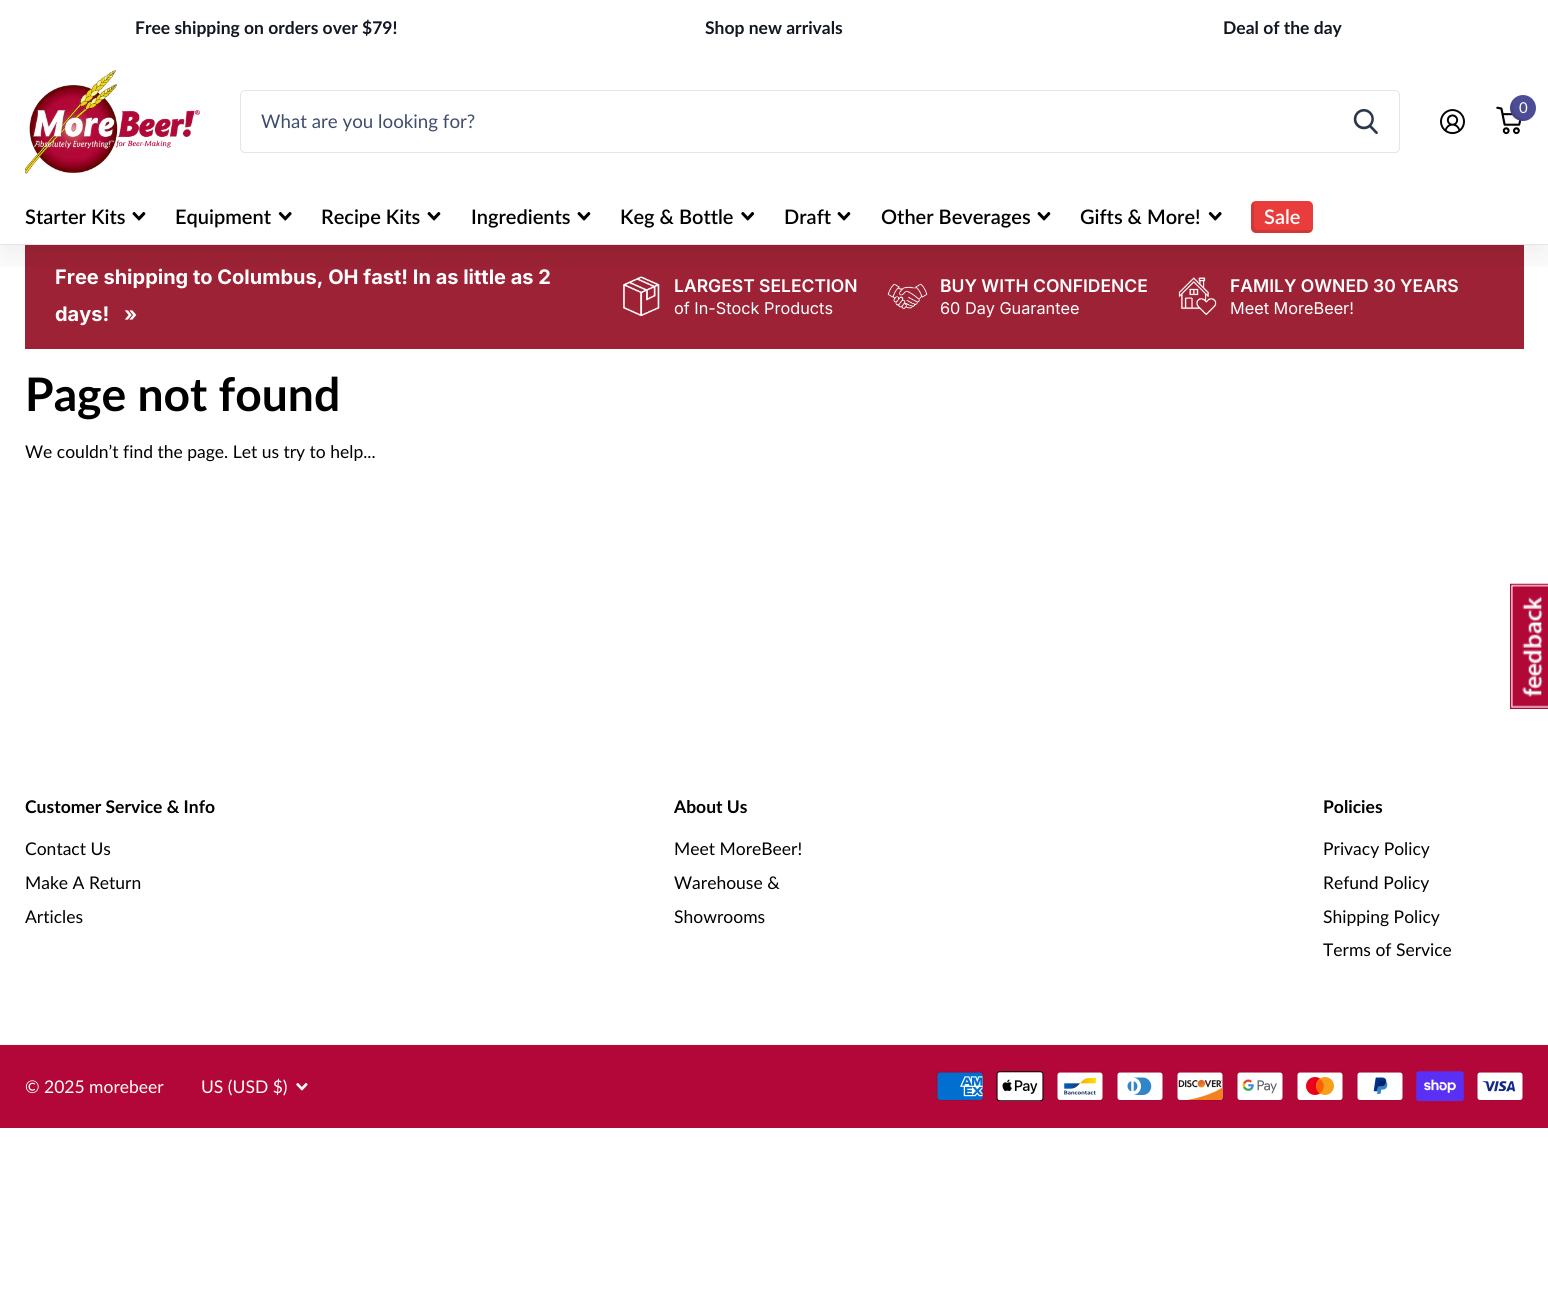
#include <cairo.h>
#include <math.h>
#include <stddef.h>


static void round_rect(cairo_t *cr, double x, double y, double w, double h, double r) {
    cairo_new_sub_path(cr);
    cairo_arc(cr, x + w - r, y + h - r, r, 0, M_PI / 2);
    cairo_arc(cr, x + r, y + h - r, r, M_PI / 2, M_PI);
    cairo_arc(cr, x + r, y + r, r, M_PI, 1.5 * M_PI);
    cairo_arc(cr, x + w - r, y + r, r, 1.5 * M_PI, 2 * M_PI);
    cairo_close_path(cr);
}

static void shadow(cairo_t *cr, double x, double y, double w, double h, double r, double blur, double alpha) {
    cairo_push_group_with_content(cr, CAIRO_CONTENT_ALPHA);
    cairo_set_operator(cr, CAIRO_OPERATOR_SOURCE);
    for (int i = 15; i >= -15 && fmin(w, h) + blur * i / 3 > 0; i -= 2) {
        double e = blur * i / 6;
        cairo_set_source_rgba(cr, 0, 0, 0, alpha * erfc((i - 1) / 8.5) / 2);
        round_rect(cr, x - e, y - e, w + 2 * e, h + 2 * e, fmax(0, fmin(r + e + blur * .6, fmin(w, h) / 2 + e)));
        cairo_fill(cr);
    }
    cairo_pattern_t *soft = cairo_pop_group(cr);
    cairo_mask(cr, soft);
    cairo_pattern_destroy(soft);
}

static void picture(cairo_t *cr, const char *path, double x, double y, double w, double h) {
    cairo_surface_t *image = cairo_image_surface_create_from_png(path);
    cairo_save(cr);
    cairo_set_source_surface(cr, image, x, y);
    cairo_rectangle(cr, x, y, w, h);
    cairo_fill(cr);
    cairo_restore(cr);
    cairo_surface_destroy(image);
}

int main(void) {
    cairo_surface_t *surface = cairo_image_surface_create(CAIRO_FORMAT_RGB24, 1548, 1291);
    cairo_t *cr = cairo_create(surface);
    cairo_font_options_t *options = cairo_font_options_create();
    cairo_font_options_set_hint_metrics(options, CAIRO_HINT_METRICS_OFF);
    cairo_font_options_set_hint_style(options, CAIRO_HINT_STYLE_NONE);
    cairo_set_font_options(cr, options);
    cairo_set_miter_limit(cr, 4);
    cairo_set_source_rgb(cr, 1, 1, 1);
    cairo_paint(cr);
    cairo_select_font_face(cr, "Lato", CAIRO_FONT_SLANT_NORMAL, CAIRO_FONT_WEIGHT_BOLD);
    cairo_set_font_size(cr, 17.5);
    cairo_set_source_rgb(cr, 0.071, 0.09, 0.137);
    cairo_move_to(cr, 135, 34);
    cairo_show_text(cr, "Free shipping on orders over $79!");
    cairo_move_to(cr, 705, 34);
    cairo_show_text(cr, "Shop new arrivals");
    cairo_move_to(cr, 1223, 34);
    cairo_show_text(cr, "Deal of the day");
    cairo_set_source_rgb(cr, 0.616, 0.133, 0.208);
    cairo_rectangle(cr, 25, 245, 1499, 104);
    cairo_fill(cr);
    picture(cr, "img8.png", 623, 276, 37, 41);
    picture(cr, "img9.png", 887, 283, 41, 27);
    picture(cr, "img10.png", 1178, 277, 39, 38);
    cairo_save(cr);
    cairo_rectangle(cr, 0, 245, 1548, 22);
    cairo_clip(cr);
    cairo_set_source_rgb(cr, 0, 0, 0);
    shadow(cr, 0, 66, 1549, 190, 0, 20, 0.07);
    cairo_restore(cr);
    cairo_set_source_rgb(cr, 0.898, 0.898, 0.898);
    cairo_rectangle(cr, 0, 244, 1548, 1);
    cairo_fill(cr);
    picture(cr, "img1.png", 25, 70, 175, 104);
    picture(cr, "img2.png", 1440, 109, 25, 26);
    picture(cr, "img3.png", 1496, 106, 26, 29);
    cairo_set_source_rgb(cr, 0.302, 0.302, 0.592);
    cairo_arc(cr, 1523, 108, 13, 0, 2 * M_PI);
    cairo_fill(cr);
    cairo_set_source_rgba(cr, 0, 0, 0, 0.1);
    cairo_new_path(cr);
    cairo_move_to(cr, 1531.5, 118);
    cairo_curve_to(cr, 1519.5, 123.5, 1507.5, 110, 1514.5, 98);
    cairo_curve_to(cr, 1501.5, 109.5, 1518.5, 129, 1531.5, 118);
    cairo_close_path(cr);
    cairo_fill(cr);
    cairo_select_font_face(cr, "Lato", CAIRO_FONT_SLANT_NORMAL, CAIRO_FONT_WEIGHT_NORMAL);
    cairo_set_font_size(cr, 15);
    cairo_set_source_rgb(cr, 1, 1, 1);
    cairo_move_to(cr, 1519, 113);
    cairo_show_text(cr, "0");
    round_rect(cr, 240.5, 90.5, 1159, 62, 4.5);
    cairo_set_source_rgb(cr, 0.898, 0.898, 0.898);
    cairo_set_line_width(cr, 1);
    cairo_stroke(cr);
    cairo_set_font_size(cr, 18.75);
    cairo_set_source_rgb(cr, 0.247, 0.306, 0.427);
    cairo_move_to(cr, 261, 128);
    cairo_show_text(cr, "What are you looking for?");
    picture(cr, "img4.png", 1353, 108, 25, 26);
    cairo_select_font_face(cr, "Lato SemiBold", CAIRO_FONT_SLANT_NORMAL, CAIRO_FONT_WEIGHT_NORMAL);
    cairo_set_font_size(cr, 20);
    cairo_set_source_rgb(cr, 0, 0, 0);
    cairo_move_to(cr, 25, 224);
    cairo_show_text(cr, "Starter Kits");
    picture(cr, "img5.png", 132, 212, 14, 9);
    cairo_move_to(cr, 175, 224);
    cairo_show_text(cr, "Equipment");
    picture(cr, "img6.png", 278, 212, 14, 9);
    cairo_move_to(cr, 321, 224);
    cairo_show_text(cr, "Recipe Kits");
    picture(cr, "img5.png", 427, 212, 14, 9);
    cairo_move_to(cr, 471, 224);
    cairo_show_text(cr, "Ingredients");
    picture(cr, "img5.png", 577, 212, 14, 9);
    cairo_move_to(cr, 620, 224);
    cairo_show_text(cr, "Keg & Bottle");
    picture(cr, "img7.png", 741, 212, 14, 9);
    cairo_move_to(cr, 784, 224);
    cairo_show_text(cr, "Draft");
    picture(cr, "img5.png", 837, 212, 14, 9);
    cairo_move_to(cr, 881, 224);
    cairo_show_text(cr, "Other Beverages");
    picture(cr, "img5.png", 1037, 212, 14, 9);
    cairo_move_to(cr, 1080, 224);
    cairo_show_text(cr, "Gifts & More!");
    picture(cr, "img6.png", 1208, 212, 14, 9);
    cairo_set_source_rgb(cr, 0.914, 0.239, 0.239);
    round_rect(cr, 1251, 201, 62, 32, 5);
    cairo_fill(cr);
    cairo_set_source_rgba(cr, 0, 0, 0, 0.1);
    cairo_new_path(cr);
    cairo_move_to(cr, 1255, 201);
    cairo_curve_to(cr, 1253, 202, 1251, 204, 1251, 206);
    cairo_line_to(cr, 1251, 228);
    cairo_curve_to(cr, 1251, 231, 1253, 233, 1256, 233);
    cairo_line_to(cr, 1308, 233);
    cairo_curve_to(cr, 1310, 233, 1312, 231, 1313, 229);
    cairo_line_to(cr, 1310, 230);
    cairo_line_to(cr, 1259, 230);
    cairo_curve_to(cr, 1256, 230, 1254, 228, 1254, 225);
    cairo_line_to(cr, 1254, 204);
    cairo_close_path(cr);
    cairo_fill(cr);
    cairo_set_source_rgb(cr, 1, 1, 1);
    cairo_move_to(cr, 1264, 224);
    cairo_show_text(cr, "Sale");
    cairo_select_font_face(cr, "Inter", CAIRO_FONT_SLANT_NORMAL, CAIRO_FONT_WEIGHT_BOLD);
    cairo_move_to(cr, 55, 284);
    cairo_show_text(cr, "Free shipping to Columbus, OH fast! In as little as 2");
    cairo_move_to(cr, 55, 321);
    cairo_show_text(cr, "days!");
    cairo_move_to(cr, 124, 321);
    cairo_show_text(cr, "»");
    cairo_select_font_face(cr, "Inter SemiBold", CAIRO_FONT_SLANT_NORMAL, CAIRO_FONT_WEIGHT_NORMAL);
    cairo_set_font_size(cr, 17.5);
    cairo_move_to(cr, 674, 292);
    cairo_show_text(cr, "LARGEST SELECTION");
    cairo_select_font_face(cr, "Inter", CAIRO_FONT_SLANT_NORMAL, CAIRO_FONT_WEIGHT_NORMAL);
    cairo_set_font_size(cr, 16.25);
    cairo_move_to(cr, 674, 314);
    cairo_show_text(cr, "of In-Stock Products");
    cairo_select_font_face(cr, "Inter SemiBold", CAIRO_FONT_SLANT_NORMAL, CAIRO_FONT_WEIGHT_NORMAL);
    cairo_set_font_size(cr, 17.5);
    cairo_move_to(cr, 940, 292);
    cairo_show_text(cr, "BUY WITH CONFIDENCE");
    cairo_select_font_face(cr, "Inter", CAIRO_FONT_SLANT_NORMAL, CAIRO_FONT_WEIGHT_NORMAL);
    cairo_set_font_size(cr, 16.25);
    cairo_move_to(cr, 940, 314);
    cairo_show_text(cr, "60 Day Guarantee");
    cairo_select_font_face(cr, "Inter SemiBold", CAIRO_FONT_SLANT_NORMAL, CAIRO_FONT_WEIGHT_NORMAL);
    cairo_set_font_size(cr, 17.5);
    cairo_move_to(cr, 1230, 292);
    cairo_show_text(cr, "FAMILY OWNED 30 YEARS");
    cairo_select_font_face(cr, "Inter", CAIRO_FONT_SLANT_NORMAL, CAIRO_FONT_WEIGHT_NORMAL);
    cairo_set_font_size(cr, 16.25);
    cairo_move_to(cr, 1230, 314);
    cairo_show_text(cr, "Meet MoreBeer!");
    cairo_select_font_face(cr, "Lato", CAIRO_FONT_SLANT_NORMAL, CAIRO_FONT_WEIGHT_BOLD);
    cairo_set_font_size(cr, 46.25);
    cairo_set_source_rgb(cr, 0, 0, 0);
    cairo_move_to(cr, 25, 411);
    cairo_show_text(cr, "Page not found");
    cairo_select_font_face(cr, "Lato", CAIRO_FONT_SLANT_NORMAL, CAIRO_FONT_WEIGHT_NORMAL);
    cairo_set_font_size(cr, 17.5);
    cairo_move_to(cr, 25, 458);
    cairo_show_text(cr, "We couldn’t find the page. Let us try to help...");
    cairo_select_font_face(cr, "Lato", CAIRO_FONT_SLANT_NORMAL, CAIRO_FONT_WEIGHT_BOLD);
    cairo_move_to(cr, 25, 813);
    cairo_show_text(cr, "Customer Service & Info");
    cairo_select_font_face(cr, "Lato", CAIRO_FONT_SLANT_NORMAL, CAIRO_FONT_WEIGHT_NORMAL);
    cairo_move_to(cr, 25, 855);
    cairo_show_text(cr, "Contact Us");
    cairo_move_to(cr, 25, 889);
    cairo_show_text(cr, "Make A Return");
    cairo_move_to(cr, 25, 923);
    cairo_show_text(cr, "Articles");
    cairo_select_font_face(cr, "Lato", CAIRO_FONT_SLANT_NORMAL, CAIRO_FONT_WEIGHT_BOLD);
    cairo_move_to(cr, 674, 813);
    cairo_show_text(cr, "About Us");
    cairo_select_font_face(cr, "Lato", CAIRO_FONT_SLANT_NORMAL, CAIRO_FONT_WEIGHT_NORMAL);
    cairo_move_to(cr, 674, 855);
    cairo_show_text(cr, "Meet MoreBeer!");
    cairo_move_to(cr, 674, 889);
    cairo_show_text(cr, "Warehouse &");
    cairo_move_to(cr, 674, 923);
    cairo_show_text(cr, "Showrooms");
    cairo_select_font_face(cr, "Lato", CAIRO_FONT_SLANT_NORMAL, CAIRO_FONT_WEIGHT_BOLD);
    cairo_move_to(cr, 1323, 813);
    cairo_show_text(cr, "Policies");
    cairo_select_font_face(cr, "Lato", CAIRO_FONT_SLANT_NORMAL, CAIRO_FONT_WEIGHT_NORMAL);
    cairo_move_to(cr, 1323, 855);
    cairo_show_text(cr, "Privacy Policy");
    cairo_move_to(cr, 1323, 889);
    cairo_show_text(cr, "Refund Policy");
    cairo_move_to(cr, 1323, 923);
    cairo_show_text(cr, "Shipping Policy");
    cairo_move_to(cr, 1323, 956);
    cairo_show_text(cr, "Terms of Service");
    cairo_set_source_rgb(cr, 0.698, 0.031, 0.22);
    cairo_rectangle(cr, 0, 1045, 1548, 83);
    cairo_fill(cr);
    cairo_set_source_rgb(cr, 0.969, 0.969, 0.969);
    cairo_rectangle(cr, 0, 1044, 1548, 1);
    cairo_fill(cr);
    cairo_set_source_rgb(cr, 1, 1, 1);
    cairo_move_to(cr, 25, 1093);
    cairo_show_text(cr, "© 2025 morebeer");
    cairo_move_to(cr, 201, 1093);
    cairo_show_text(cr, "US (USD $)");
    picture(cr, "img11.png", 296, 1083, 12, 8);
    picture(cr, "img12.png", 936, 1071, 48, 30);
    picture(cr, "img13.png", 996, 1071, 48, 30);
    picture(cr, "img14.png", 1056, 1071, 48, 30);
    picture(cr, "img15.png", 1116, 1071, 48, 30);
    picture(cr, "img16.png", 1176, 1071, 48, 30);
    picture(cr, "img17.png", 1236, 1071, 48, 30);
    picture(cr, "img18.png", 1296, 1071, 48, 30);
    picture(cr, "img19.png", 1356, 1071, 48, 30);
    picture(cr, "img20.png", 1416, 1071, 48, 30);
    picture(cr, "img21.png", 1476, 1071, 48, 30);
    cairo_set_source_rgb(cr, 0.698, 0.031, 0.22);
    cairo_rectangle(cr, 1510, 708, 38, 1);
    cairo_fill(cr);
    picture(cr, "img22.png", 1510, 583, 38, 125);
    cairo_surface_write_to_png(surface, "page.png");
    cairo_font_options_destroy(options);
    cairo_destroy(cr);
    cairo_surface_destroy(surface);
    return 0;
}
